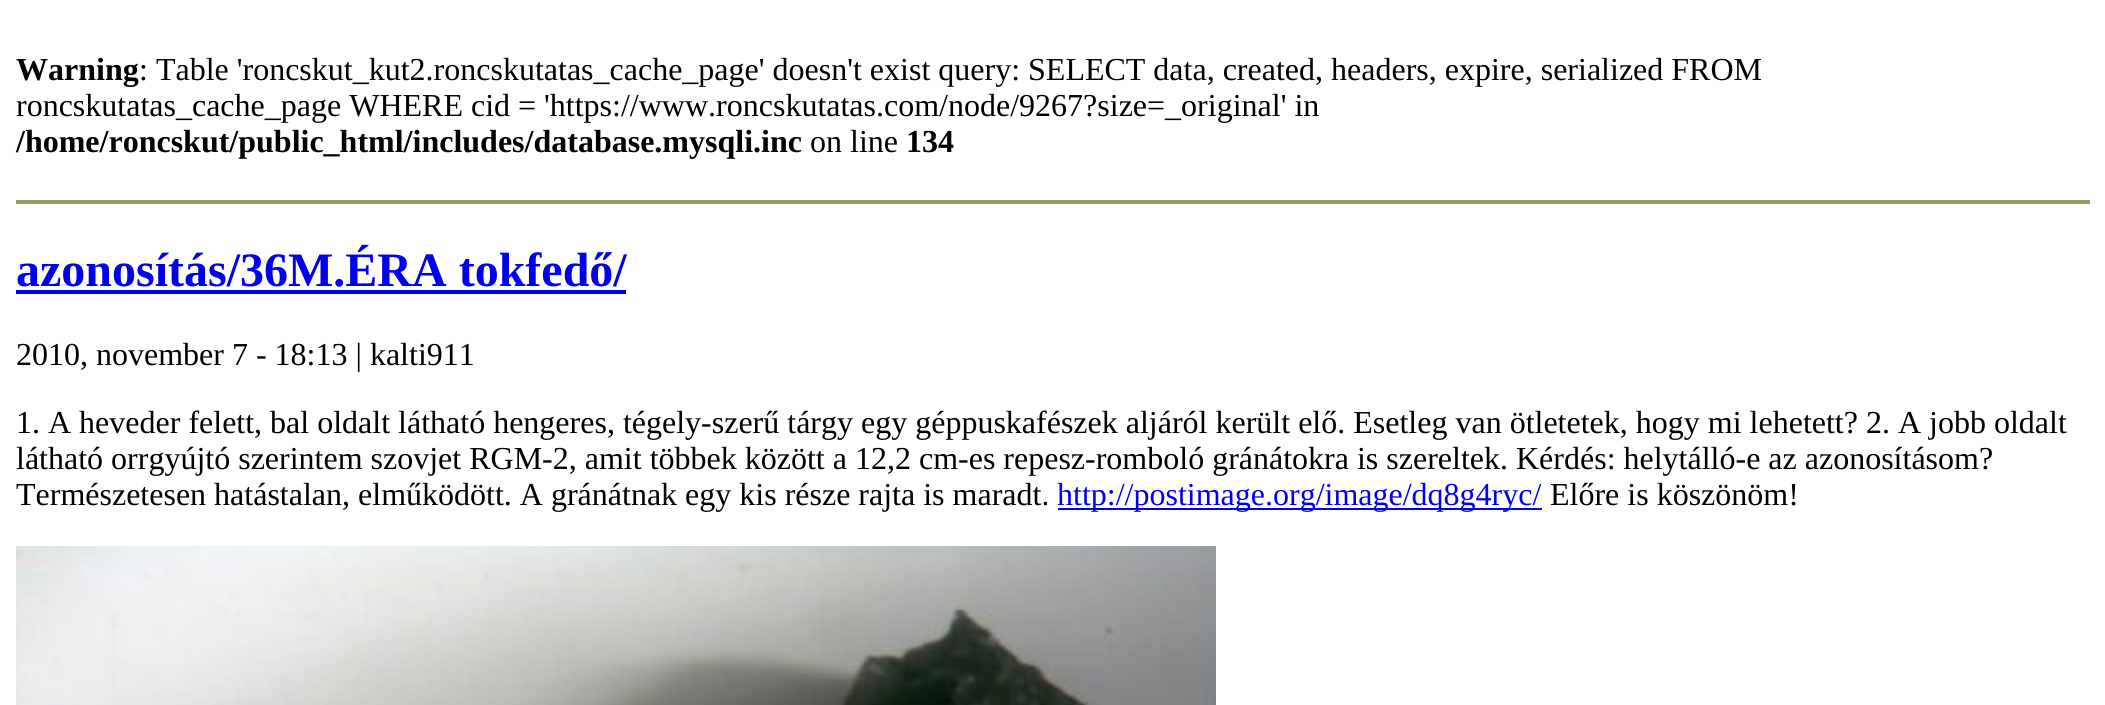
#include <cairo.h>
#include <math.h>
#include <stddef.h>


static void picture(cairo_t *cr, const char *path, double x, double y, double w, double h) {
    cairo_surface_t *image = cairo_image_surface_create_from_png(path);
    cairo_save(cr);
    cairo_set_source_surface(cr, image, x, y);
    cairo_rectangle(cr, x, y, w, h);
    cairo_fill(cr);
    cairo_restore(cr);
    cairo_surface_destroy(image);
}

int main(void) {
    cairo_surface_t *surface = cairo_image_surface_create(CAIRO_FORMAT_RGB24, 2105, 705);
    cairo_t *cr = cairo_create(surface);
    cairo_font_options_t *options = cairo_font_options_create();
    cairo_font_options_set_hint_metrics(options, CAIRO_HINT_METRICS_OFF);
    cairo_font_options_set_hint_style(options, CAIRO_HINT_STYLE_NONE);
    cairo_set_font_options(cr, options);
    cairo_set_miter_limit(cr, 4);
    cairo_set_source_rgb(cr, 1, 1, 1);
    cairo_paint(cr);
    cairo_select_font_face(cr, "Liberation Serif", CAIRO_FONT_SLANT_NORMAL, CAIRO_FONT_WEIGHT_BOLD);
    cairo_set_font_size(cr, 32);
    cairo_set_source_rgb(cr, 0, 0, 0);
    cairo_move_to(cr, 16, 80);
    cairo_show_text(cr, "Warning");
    cairo_select_font_face(cr, "Liberation Serif", CAIRO_FONT_SLANT_NORMAL, CAIRO_FONT_WEIGHT_NORMAL);
    cairo_move_to(cr, 139, 80);
    cairo_show_text(cr, ": Table 'roncskut_kut2.roncskutatas_cache_page' doesn't exist query: SELECT data, created, headers, expire, serialized FROM");
    cairo_move_to(cr, 16, 116);
    cairo_show_text(cr, "roncskutatas_cache_page WHERE cid = 'https://www.roncskutatas.com/node/9267?size=_original' in");
    cairo_select_font_face(cr, "Liberation Serif", CAIRO_FONT_SLANT_NORMAL, CAIRO_FONT_WEIGHT_BOLD);
    cairo_move_to(cr, 16, 152);
    cairo_show_text(cr, "/home/roncskut/public_html/includes/database.mysqli.inc");
    cairo_select_font_face(cr, "Liberation Serif", CAIRO_FONT_SLANT_NORMAL, CAIRO_FONT_WEIGHT_NORMAL);
    cairo_move_to(cr, 810, 152);
    cairo_show_text(cr, "on line");
    cairo_select_font_face(cr, "Liberation Serif", CAIRO_FONT_SLANT_NORMAL, CAIRO_FONT_WEIGHT_BOLD);
    cairo_move_to(cr, 906, 152);
    cairo_show_text(cr, "134");
    cairo_set_source_rgb(cr, 0.6, 0.6, 0.4);
    cairo_rectangle(cr, 16, 200, 2074, 4);
    cairo_fill(cr);
    cairo_set_font_size(cr, 48);
    cairo_set_source_rgb(cr, 0, 0, 0.933);
    cairo_move_to(cr, 16, 286);
    cairo_show_text(cr, "azonosítás/36M.ÉRA tokfedő/");
    cairo_rectangle(cr, 16, 290, 610, 4);
    cairo_fill(cr);
    cairo_select_font_face(cr, "Liberation Serif", CAIRO_FONT_SLANT_NORMAL, CAIRO_FONT_WEIGHT_NORMAL);
    cairo_set_font_size(cr, 32);
    cairo_set_source_rgb(cr, 0, 0, 0);
    cairo_move_to(cr, 16, 365);
    cairo_show_text(cr, "2010, november 7 - 18:13 | kalti911");
    cairo_move_to(cr, 16, 433);
    cairo_show_text(cr, "1. A heveder felett, bal oldalt látható hengeres, tégely-szerű tárgy egy géppuskafészek aljáról került elő. Esetleg van ötletetek, hogy mi lehetett? 2. A jobb oldalt");
    cairo_move_to(cr, 16, 469);
    cairo_show_text(cr, "látható orrgyújtó szerintem szovjet RGM-2, amit többek között a 12,2 cm-es repesz-romboló gránátokra is szereltek. Kérdés: helytálló-e az azonosításom?");
    cairo_move_to(cr, 16, 505);
    cairo_show_text(cr, "Természetesen hatástalan, elműködött. A gránátnak egy kis része rajta is maradt.");
    cairo_set_source_rgb(cr, 0, 0, 0.933);
    cairo_rectangle(cr, 1058, 508, 484, 2);
    cairo_fill(cr);
    cairo_move_to(cr, 1057, 505);
    cairo_show_text(cr, "http://postimage.org/image/dq8g4ryc/");
    cairo_set_source_rgb(cr, 0, 0, 0);
    cairo_move_to(cr, 1550, 505);
    cairo_show_text(cr, "Előre is köszönöm!");
    picture(cr, "img1.png", 16, 546, 1200, 159);
    cairo_surface_write_to_png(surface, "page.png");
    cairo_font_options_destroy(options);
    cairo_destroy(cr);
    cairo_surface_destroy(surface);
    return 0;
}
